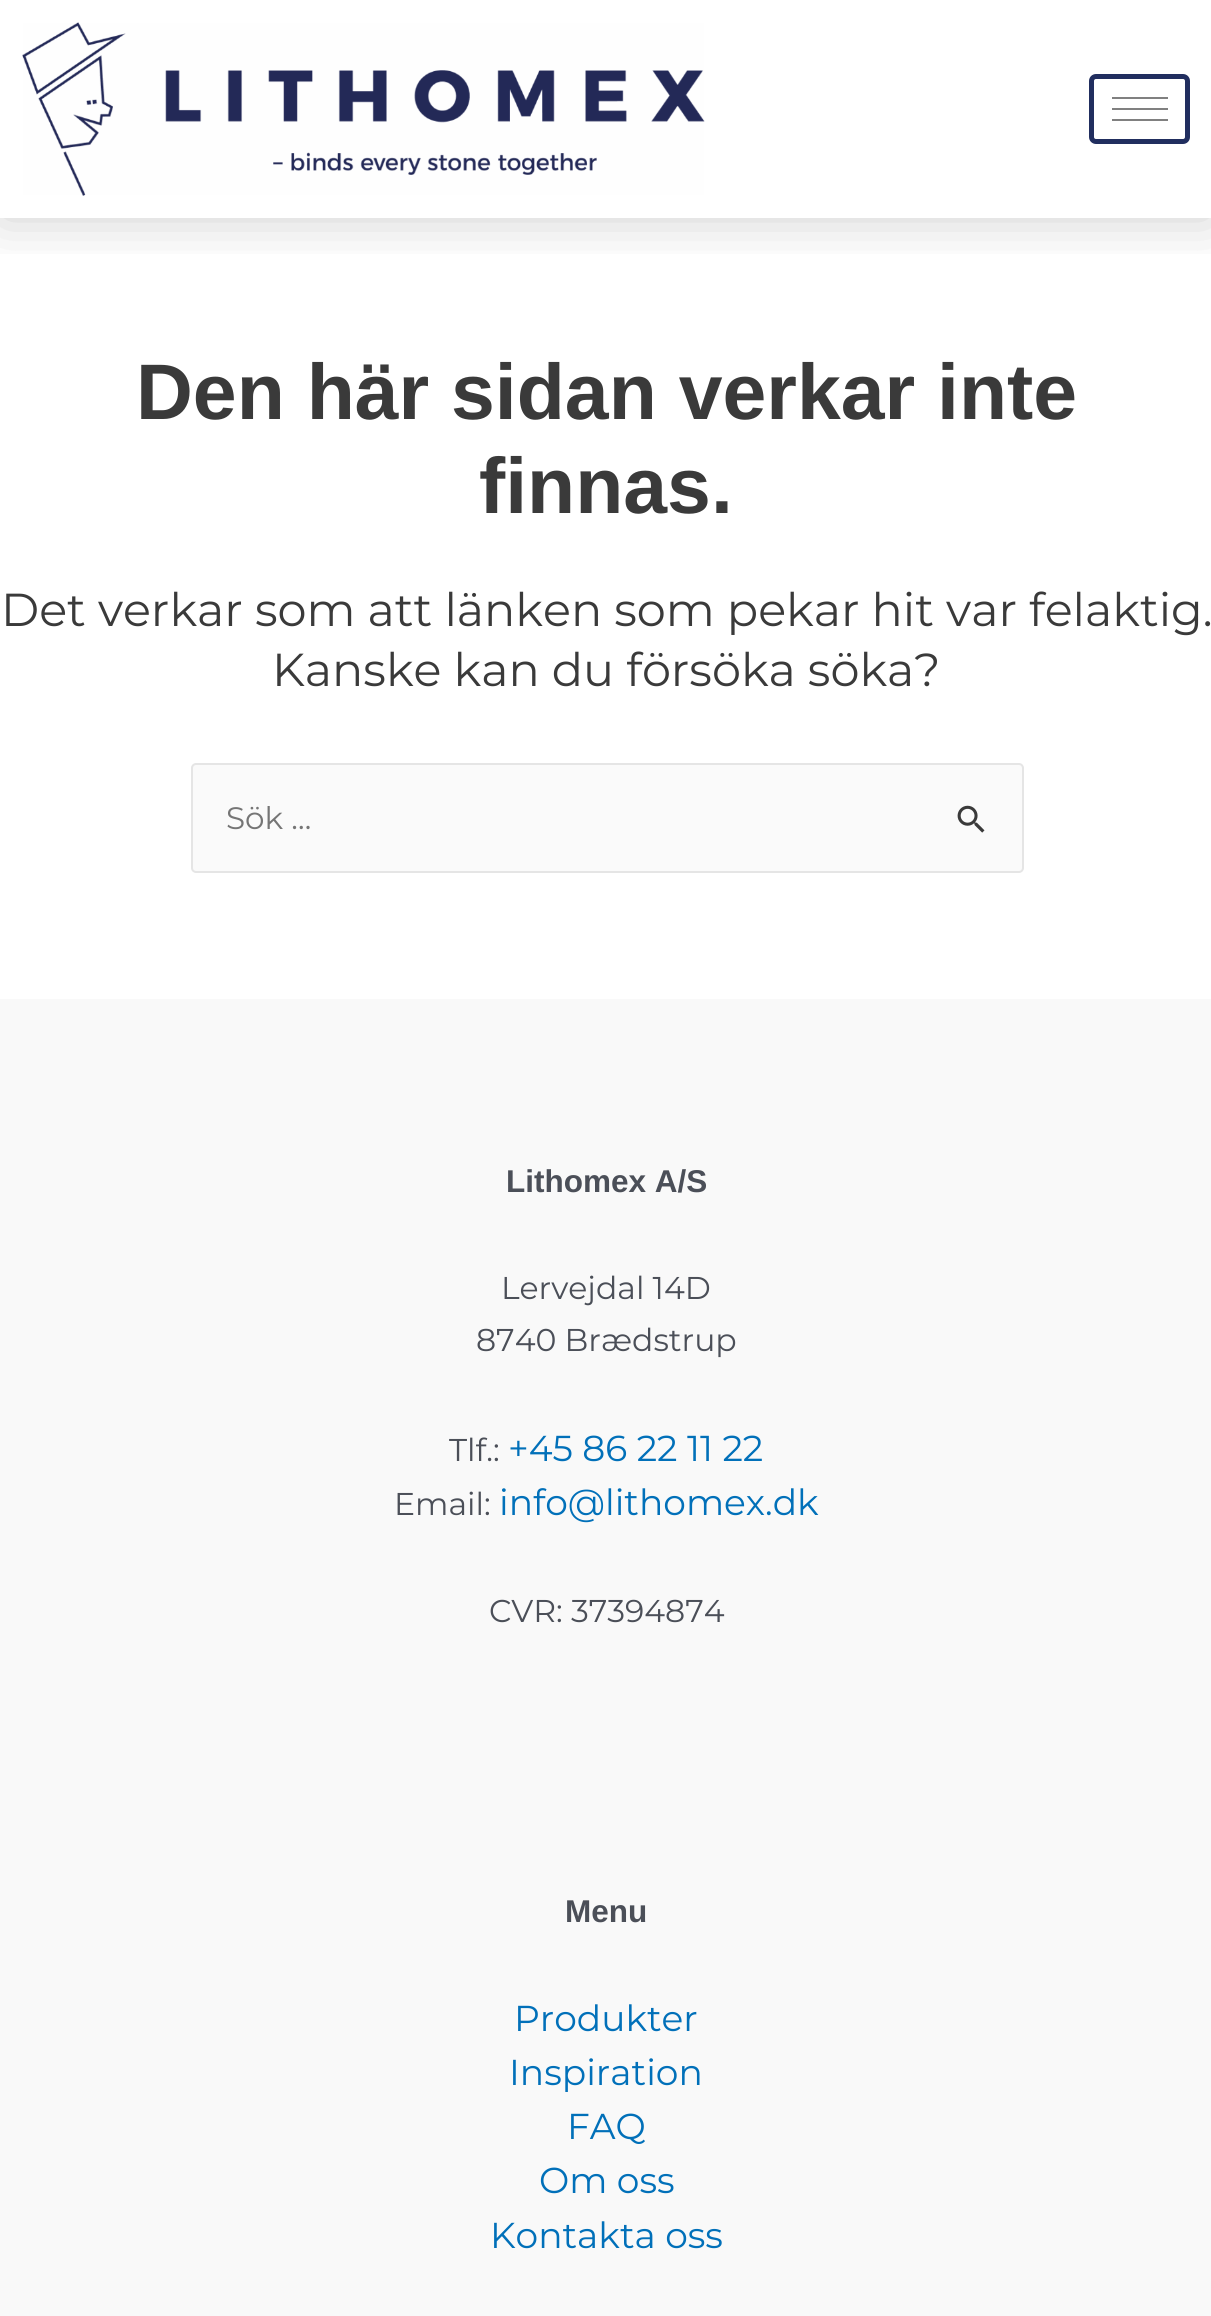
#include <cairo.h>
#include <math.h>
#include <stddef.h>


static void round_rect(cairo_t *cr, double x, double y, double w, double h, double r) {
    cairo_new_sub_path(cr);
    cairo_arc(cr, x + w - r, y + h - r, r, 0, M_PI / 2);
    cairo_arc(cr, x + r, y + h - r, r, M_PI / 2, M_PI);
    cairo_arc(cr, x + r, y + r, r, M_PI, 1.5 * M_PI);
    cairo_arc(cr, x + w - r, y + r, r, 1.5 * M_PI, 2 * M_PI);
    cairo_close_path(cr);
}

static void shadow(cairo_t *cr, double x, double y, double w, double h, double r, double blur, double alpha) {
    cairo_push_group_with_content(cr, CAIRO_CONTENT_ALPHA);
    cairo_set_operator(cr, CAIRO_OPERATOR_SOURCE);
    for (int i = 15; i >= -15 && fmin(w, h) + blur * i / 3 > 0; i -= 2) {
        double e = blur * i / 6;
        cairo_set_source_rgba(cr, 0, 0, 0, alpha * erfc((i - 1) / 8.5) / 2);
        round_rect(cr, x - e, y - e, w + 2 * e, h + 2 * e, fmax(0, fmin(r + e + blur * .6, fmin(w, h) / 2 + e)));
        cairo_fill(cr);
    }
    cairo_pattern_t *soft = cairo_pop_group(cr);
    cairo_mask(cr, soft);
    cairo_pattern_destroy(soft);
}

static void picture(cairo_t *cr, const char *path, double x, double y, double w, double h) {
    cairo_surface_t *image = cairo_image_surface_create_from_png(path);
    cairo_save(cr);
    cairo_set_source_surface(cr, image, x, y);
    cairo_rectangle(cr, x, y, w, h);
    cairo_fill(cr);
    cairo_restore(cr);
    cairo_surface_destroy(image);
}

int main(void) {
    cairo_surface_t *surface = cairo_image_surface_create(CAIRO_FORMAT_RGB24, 1211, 2316);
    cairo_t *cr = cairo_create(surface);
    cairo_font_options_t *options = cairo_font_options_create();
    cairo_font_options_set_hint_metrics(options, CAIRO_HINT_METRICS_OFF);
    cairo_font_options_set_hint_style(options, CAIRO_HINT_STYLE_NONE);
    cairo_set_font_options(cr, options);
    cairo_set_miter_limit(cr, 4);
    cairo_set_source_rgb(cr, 1, 1, 1);
    cairo_paint(cr);
    cairo_save(cr);
    cairo_rectangle(cr, 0, 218, 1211, 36);
    cairo_clip(cr);
    cairo_set_source_rgb(cr, 0, 0, 0);
    shadow(cr, 0, 0, 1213, 218, 0, 28, 0.2);
    cairo_restore(cr);
    picture(cr, "img1.png", 22, 22, 683, 174);
    round_rect(cr, 1091.5, 76.5, 96, 65, 4.5);
    cairo_set_source_rgb(cr, 0.129, 0.18, 0.373);
    cairo_set_line_width(cr, 5);
    cairo_stroke(cr);
    cairo_set_source_rgb(cr, 0.502, 0.502, 0.502);
    cairo_rectangle(cr, 1112, 97, 56, 2);
    cairo_fill(cr);
    cairo_rectangle(cr, 1112, 108, 56, 2);
    cairo_fill(cr);
    cairo_rectangle(cr, 1112, 119, 56, 2);
    cairo_fill(cr);
    cairo_select_font_face(cr, "Liberation Sans", CAIRO_FONT_SLANT_NORMAL, CAIRO_FONT_WEIGHT_BOLD);
    cairo_set_font_size(cr, 78.75);
    cairo_set_source_rgb(cr, 0.227, 0.227, 0.227);
    cairo_move_to(cr, 136, 419);
    cairo_show_text(cr, "Den här sidan verkar inte");
    cairo_move_to(cr, 479, 513);
    cairo_show_text(cr, "finnas.");
    cairo_select_font_face(cr, "Montserrat", CAIRO_FONT_SLANT_NORMAL, CAIRO_FONT_WEIGHT_NORMAL);
    cairo_set_font_size(cr, 46.2);
    cairo_move_to(cr, 1, 626);
    cairo_show_text(cr, "Det verkar som att länken som pekar hit var felaktig.");
    cairo_move_to(cr, 272, 686);
    cairo_show_text(cr, "Kanske kan du försöka söka?");
    cairo_set_source_rgb(cr, 0.98, 0.98, 0.98);
    round_rect(cr, 192, 764, 831, 108, 4);
    cairo_fill_preserve(cr);
    cairo_set_source_rgb(cr, 0.898, 0.898, 0.898);
    cairo_set_line_width(cr, 2);
    cairo_stroke(cr);
    cairo_set_font_size(cr, 31);
    cairo_set_source_rgb(cr, 0.459, 0.459, 0.459);
    cairo_move_to(cr, 226, 829);
    cairo_show_text(cr, "Sök …");
    picture(cr, "img2.png", 957, 805, 28, 28);
    cairo_set_source_rgb(cr, 0.976, 0.976, 0.976);
    cairo_rectangle(cr, 0, 999, 1211, 1317);
    cairo_fill(cr);
    cairo_select_font_face(cr, "Liberation Sans", CAIRO_FONT_SLANT_NORMAL, CAIRO_FONT_WEIGHT_BOLD);
    cairo_set_font_size(cr, 31.5);
    cairo_set_source_rgb(cr, 0.294, 0.31, 0.345);
    cairo_move_to(cr, 506, 1192);
    cairo_show_text(cr, "Lithomex A/S");
    cairo_select_font_face(cr, "Montserrat", CAIRO_FONT_SLANT_NORMAL, CAIRO_FONT_WEIGHT_NORMAL);
    cairo_move_to(cr, 501, 1299);
    cairo_show_text(cr, "Lervejdal 14D");
    cairo_move_to(cr, 476, 1351);
    cairo_show_text(cr, "8740 Brædstrup");
    cairo_move_to(cr, 449, 1461);
    cairo_show_text(cr, "Tlf.:");
    cairo_set_font_size(cr, 36);
    cairo_set_source_rgb(cr, 0.004, 0.439, 0.725);
    cairo_move_to(cr, 508, 1461);
    cairo_show_text(cr, "+45 86 22 11 22");
    cairo_set_font_size(cr, 31.5);
    cairo_set_source_rgb(cr, 0.294, 0.31, 0.345);
    cairo_move_to(cr, 394, 1515);
    cairo_show_text(cr, "Email:");
    cairo_set_font_size(cr, 36);
    cairo_set_source_rgb(cr, 0.004, 0.439, 0.725);
    cairo_move_to(cr, 499, 1515);
    cairo_show_text(cr, "info@lithomex.dk");
    cairo_set_font_size(cr, 31.5);
    cairo_set_source_rgb(cr, 0.294, 0.31, 0.345);
    cairo_move_to(cr, 489, 1622);
    cairo_show_text(cr, "CVR: 37394874");
    cairo_select_font_face(cr, "Liberation Sans", CAIRO_FONT_SLANT_NORMAL, CAIRO_FONT_WEIGHT_BOLD);
    cairo_move_to(cr, 565, 1922);
    cairo_show_text(cr, "Menu");
    cairo_select_font_face(cr, "Montserrat", CAIRO_FONT_SLANT_NORMAL, CAIRO_FONT_WEIGHT_NORMAL);
    cairo_set_font_size(cr, 36);
    cairo_set_source_rgb(cr, 0.004, 0.439, 0.725);
    cairo_move_to(cr, 514, 2031);
    cairo_show_text(cr, "Produkter");
    cairo_move_to(cr, 509, 2085);
    cairo_show_text(cr, "Inspiration");
    cairo_move_to(cr, 567, 2139);
    cairo_show_text(cr, "FAQ");
    cairo_move_to(cr, 539, 2193);
    cairo_show_text(cr, "Om oss");
    cairo_move_to(cr, 490, 2248);
    cairo_show_text(cr, "Kontakta oss");
    cairo_surface_write_to_png(surface, "page.png");
    cairo_font_options_destroy(options);
    cairo_destroy(cr);
    cairo_surface_destroy(surface);
    return 0;
}
